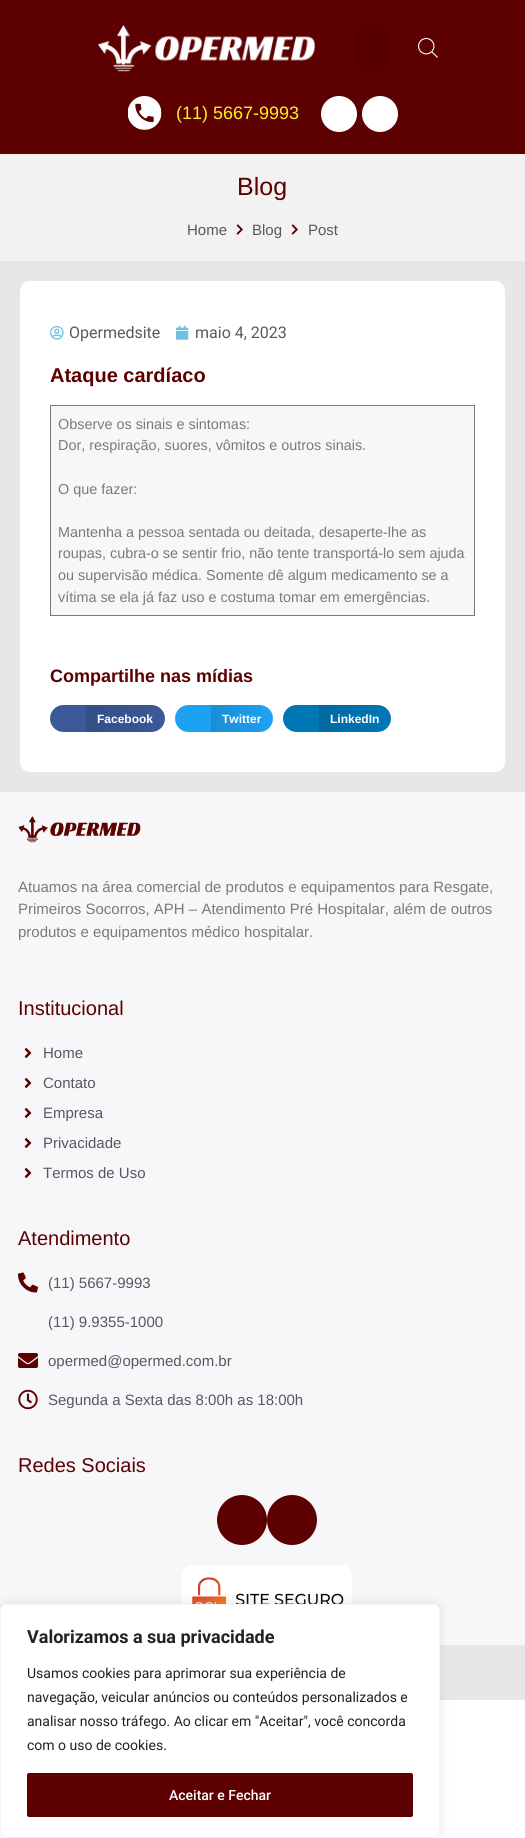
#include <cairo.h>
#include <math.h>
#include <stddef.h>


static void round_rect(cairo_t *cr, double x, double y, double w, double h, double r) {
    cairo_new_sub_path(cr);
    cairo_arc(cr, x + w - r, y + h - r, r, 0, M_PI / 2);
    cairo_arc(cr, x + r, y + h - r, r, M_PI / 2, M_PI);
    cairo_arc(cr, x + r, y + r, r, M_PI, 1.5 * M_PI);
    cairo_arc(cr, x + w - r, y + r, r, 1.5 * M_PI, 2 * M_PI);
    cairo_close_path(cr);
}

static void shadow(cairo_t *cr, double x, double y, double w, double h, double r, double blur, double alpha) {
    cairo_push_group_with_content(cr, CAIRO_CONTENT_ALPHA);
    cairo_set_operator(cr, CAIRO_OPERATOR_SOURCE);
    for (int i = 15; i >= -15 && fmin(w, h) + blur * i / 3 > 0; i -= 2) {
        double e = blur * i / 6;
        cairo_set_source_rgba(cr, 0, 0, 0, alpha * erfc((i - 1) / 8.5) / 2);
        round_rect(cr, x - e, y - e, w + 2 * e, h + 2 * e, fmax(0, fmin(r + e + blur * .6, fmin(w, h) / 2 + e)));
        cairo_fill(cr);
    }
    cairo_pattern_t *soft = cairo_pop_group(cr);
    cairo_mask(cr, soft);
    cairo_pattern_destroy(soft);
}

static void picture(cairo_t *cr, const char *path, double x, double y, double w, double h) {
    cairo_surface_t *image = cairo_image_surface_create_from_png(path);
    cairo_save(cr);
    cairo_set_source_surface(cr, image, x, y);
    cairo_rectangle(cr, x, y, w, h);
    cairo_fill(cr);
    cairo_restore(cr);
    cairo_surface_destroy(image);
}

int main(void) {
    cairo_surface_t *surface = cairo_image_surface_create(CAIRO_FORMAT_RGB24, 525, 1838);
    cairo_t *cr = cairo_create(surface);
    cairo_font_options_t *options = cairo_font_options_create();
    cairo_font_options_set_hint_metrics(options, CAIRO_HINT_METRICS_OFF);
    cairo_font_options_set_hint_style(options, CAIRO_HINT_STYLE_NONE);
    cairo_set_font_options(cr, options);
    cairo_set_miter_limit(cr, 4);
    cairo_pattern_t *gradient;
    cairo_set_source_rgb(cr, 1, 1, 1);
    cairo_paint(cr);
    cairo_set_source_rgb(cr, 0.361, 0, 0.004);
    cairo_rectangle(cr, 0, 0, 525, 154);
    cairo_fill(cr);
    picture(cr, "img1.png", 98, 25, 218, 47);
    cairo_set_source_rgb(cr, 0.341, 0, 0.004);
    round_rect(cr, 357, 29, 31, 38, 3);
    cairo_fill(cr);
    picture(cr, "img2.png", 418, 38, 20, 20);
    picture(cr, "img3.png", 128, 96, 34, 34);
    cairo_select_font_face(cr, "Liberation Sans", CAIRO_FONT_SLANT_NORMAL, CAIRO_FONT_WEIGHT_NORMAL);
    cairo_set_font_size(cr, 18);
    cairo_set_source_rgb(cr, 1, 0.945, 0.122);
    cairo_move_to(cr, 176, 119);
    cairo_show_text(cr, "(11) 5667-9993");
    cairo_set_source_rgb(cr, 1, 1, 1);
    cairo_new_path(cr);
    cairo_arc(cr, 339, 114, 18, 0, 2 * M_PI);
    cairo_fill(cr);
    cairo_arc(cr, 380, 114, 18, 0, 2 * M_PI);
    cairo_fill(cr);
    cairo_set_source_rgb(cr, 0.949, 0.949, 0.949);
    cairo_rectangle(cr, 0, 154, 525, 107);
    cairo_fill(cr);
    cairo_set_font_size(cr, 25);
    cairo_set_source_rgb(cr, 0.361, 0, 0.004);
    cairo_move_to(cr, 237, 195);
    cairo_show_text(cr, "Blog");
    cairo_set_font_size(cr, 15);
    cairo_set_source_rgb(cr, 0.329, 0.349, 0.373);
    cairo_move_to(cr, 187, 235);
    cairo_show_text(cr, "Home");
    picture(cr, "img4.png", 236, 224, 7, 11);
    cairo_move_to(cr, 252, 235);
    cairo_show_text(cr, "Blog");
    picture(cr, "img4.png", 291, 224, 7, 11);
    cairo_move_to(cr, 308, 235);
    cairo_show_text(cr, "Post");
    cairo_set_source_rgb(cr, 0.906, 0.906, 0.906);
    cairo_rectangle(cr, 0, 261, 525, 531);
    cairo_fill(cr);
    cairo_set_source_rgb(cr, 1, 1, 1);
    round_rect(cr, 20, 281, 485, 491, 10);
    cairo_fill(cr);
    picture(cr, "img5.png", 50, 326, 14, 14);
    cairo_select_font_face(cr, "Roboto", CAIRO_FONT_SLANT_NORMAL, CAIRO_FONT_WEIGHT_NORMAL);
    cairo_set_font_size(cr, 16);
    cairo_set_source_rgb(cr, 0.329, 0.349, 0.373);
    cairo_move_to(cr, 69, 338);
    cairo_show_text(cr, "Opermedsite");
    picture(cr, "img6.png", 176, 325, 13, 15);
    cairo_move_to(cr, 195, 338);
    cairo_show_text(cr, "maio 4, 2023");
    cairo_select_font_face(cr, "Liberation Sans", CAIRO_FONT_SLANT_NORMAL, CAIRO_FONT_WEIGHT_BOLD);
    cairo_set_font_size(cr, 20);
    cairo_set_source_rgb(cr, 0.361, 0, 0.004);
    cairo_move_to(cr, 50, 382);
    cairo_show_text(cr, "Ataque cardíaco");
    cairo_set_source_rgb(cr, 0.965, 0.965, 0.965);
    cairo_rectangle(cr, 51, 406, 423, 209);
    cairo_fill(cr);
    cairo_set_source_rgb(cr, 0.478, 0.478, 0.478);
    cairo_rectangle(cr, 50, 405, 425, 1);
    cairo_fill(cr);
    cairo_rectangle(cr, 474, 405, 1, 211);
    cairo_fill(cr);
    cairo_rectangle(cr, 50, 615, 425, 1);
    cairo_fill(cr);
    cairo_rectangle(cr, 50, 405, 1, 211);
    cairo_fill(cr);
    cairo_select_font_face(cr, "Liberation Sans", CAIRO_FONT_SLANT_NORMAL, CAIRO_FONT_WEIGHT_NORMAL);
    cairo_set_font_size(cr, 14.4);
    cairo_move_to(cr, 58, 429);
    cairo_show_text(cr, "Observe os sinais e sintomas:");
    cairo_move_to(cr, 58, 450);
    cairo_show_text(cr, "Dor, respiração, suores, vômitos e outros sinais.");
    cairo_move_to(cr, 58, 494);
    cairo_show_text(cr, "O que fazer:");
    cairo_move_to(cr, 58, 537);
    cairo_show_text(cr, "Mantenha a pessoa sentada ou deitada, desaperte-lhe as");
    cairo_move_to(cr, 58, 558);
    cairo_show_text(cr, "roupas, cubra-o se sentir frio, não tente transportá-lo sem ajuda");
    cairo_move_to(cr, 58, 580);
    cairo_show_text(cr, "ou supervisão médica. Somente dê algum medicamento se a");
    cairo_move_to(cr, 58, 602);
    cairo_show_text(cr, "vítima se ela já faz uso e costuma tomar em emergências.");
    cairo_select_font_face(cr, "Liberation Sans", CAIRO_FONT_SLANT_NORMAL, CAIRO_FONT_WEIGHT_BOLD);
    cairo_set_font_size(cr, 18);
    cairo_set_source_rgb(cr, 0.361, 0, 0.004);
    cairo_move_to(cr, 50, 682);
    cairo_show_text(cr, "Compartilhe nas mídias");
    cairo_set_source_rgb(cr, 0.231, 0.349, 0.596);
    round_rect(cr, 50, 705, 115, 27, 13.5);
    cairo_fill(cr);
    gradient = cairo_pattern_create_linear(86, 719, 165, 719);
    cairo_pattern_add_color_stop_rgba(gradient, 0, 0, 0, 0, 0.12);
    cairo_pattern_add_color_stop_rgba(gradient, 1, 0, 0, 0, 0);
    cairo_set_source(cr, gradient);
    cairo_pattern_destroy(gradient);
    cairo_rectangle(cr, 86, 705, 65, 27);
    cairo_fill(cr);
    cairo_set_font_size(cr, 12);
    cairo_set_source_rgb(cr, 1, 1, 1);
    cairo_move_to(cr, 97, 723);
    cairo_show_text(cr, "Facebook");
    cairo_set_source_rgb(cr, 0.114, 0.631, 0.949);
    round_rect(cr, 175, 705, 98, 27, 13.5);
    cairo_fill(cr);
    gradient = cairo_pattern_create_linear(211, 719, 273, 719);
    cairo_pattern_add_color_stop_rgba(gradient, 0, 0, 0, 0, 0.12);
    cairo_pattern_add_color_stop_rgba(gradient, 1, 0, 0, 0, 0);
    cairo_set_source(cr, gradient);
    cairo_pattern_destroy(gradient);
    cairo_rectangle(cr, 211, 705, 51, 27);
    cairo_fill(cr);
    cairo_set_source_rgb(cr, 1, 1, 1);
    cairo_move_to(cr, 222, 723);
    cairo_show_text(cr, "Twitter");
    cairo_set_source_rgb(cr, 0, 0.467, 0.71);
    round_rect(cr, 283, 705, 108, 27, 13.5);
    cairo_fill(cr);
    gradient = cairo_pattern_create_linear(319, 719, 391, 719);
    cairo_pattern_add_color_stop_rgba(gradient, 0, 0, 0, 0, 0.12);
    cairo_pattern_add_color_stop_rgba(gradient, 1, 0, 0, 0, 0);
    cairo_set_source(cr, gradient);
    cairo_pattern_destroy(gradient);
    cairo_rectangle(cr, 319, 705, 59, 27);
    cairo_fill(cr);
    cairo_set_source_rgb(cr, 1, 1, 1);
    cairo_move_to(cr, 330, 723);
    cairo_show_text(cr, "LinkedIn");
    cairo_set_source_rgb(cr, 0.965, 0.965, 0.973);
    cairo_rectangle(cr, 0, 792, 525, 853);
    cairo_fill(cr);
    picture(cr, "img7.png", 18, 816, 123, 27);
    cairo_select_font_face(cr, "Liberation Sans", CAIRO_FONT_SLANT_NORMAL, CAIRO_FONT_WEIGHT_NORMAL);
    cairo_set_font_size(cr, 15);
    cairo_set_source_rgb(cr, 0.478, 0.478, 0.478);
    cairo_move_to(cr, 18, 892);
    cairo_show_text(cr, "Atuamos na área comercial de produtos e equipamentos para Resgate,");
    cairo_move_to(cr, 18, 914);
    cairo_show_text(cr, "Primeiros Socorros, APH – Atendimento Pré Hospitalar, além de outros");
    cairo_move_to(cr, 18, 937);
    cairo_show_text(cr, "produtos e equipamentos médico hospitalar.");
    cairo_set_font_size(cr, 20);
    cairo_set_source_rgb(cr, 0.361, 0, 0.004);
    cairo_move_to(cr, 18, 1015);
    cairo_show_text(cr, "Institucional");
    picture(cr, "img8.png", 24, 1048, 8, 10);
    cairo_set_font_size(cr, 15);
    cairo_set_source_rgb(cr, 0.329, 0.349, 0.373);
    cairo_move_to(cr, 43, 1058);
    cairo_show_text(cr, "Home");
    picture(cr, "img8.png", 24, 1078, 8, 10);
    cairo_move_to(cr, 43, 1088);
    cairo_show_text(cr, "Contato");
    picture(cr, "img8.png", 24, 1108, 8, 10);
    cairo_move_to(cr, 43, 1118);
    cairo_show_text(cr, "Empresa");
    picture(cr, "img8.png", 24, 1138, 8, 10);
    cairo_move_to(cr, 43, 1148);
    cairo_show_text(cr, "Privacidade");
    picture(cr, "img8.png", 24, 1168, 8, 10);
    cairo_move_to(cr, 43, 1178);
    cairo_show_text(cr, "Termos de Uso");
    cairo_set_font_size(cr, 20);
    cairo_set_source_rgb(cr, 0.361, 0, 0.004);
    cairo_move_to(cr, 18, 1245);
    cairo_show_text(cr, "Atendimento");
    picture(cr, "img9.png", 18, 1272, 20, 21);
    cairo_set_font_size(cr, 15);
    cairo_set_source_rgb(cr, 0.329, 0.349, 0.373);
    cairo_move_to(cr, 48, 1288);
    cairo_show_text(cr, "(11) 5667-9993");
    cairo_move_to(cr, 48, 1327);
    cairo_show_text(cr, "(11) 9.9355-1000");
    picture(cr, "img10.png", 18, 1353, 20, 15);
    cairo_move_to(cr, 48, 1366);
    cairo_show_text(cr, "opermed@opermed.com.br");
    picture(cr, "img11.png", 18, 1389, 20, 21);
    cairo_move_to(cr, 48, 1405);
    cairo_show_text(cr, "Segunda a Sexta das 8:00h as 18:00h");
    cairo_set_font_size(cr, 20);
    cairo_set_source_rgb(cr, 0.361, 0, 0.004);
    cairo_move_to(cr, 18, 1472);
    cairo_show_text(cr, "Redes Sociais");
    cairo_new_path(cr);
    cairo_arc(cr, 242, 1520, 25, 0, 2 * M_PI);
    cairo_fill(cr);
    cairo_arc(cr, 292, 1520, 25, 0, 2 * M_PI);
    cairo_fill(cr);
    picture(cr, "img12.png", 182, 1565, 170, 39);
    cairo_set_source_rgb(cr, 0.906, 0.906, 0.906);
    cairo_rectangle(cr, 440, 1645, 85, 55);
    cairo_fill(cr);
    cairo_set_source_rgb(cr, 0.675, 0.671, 0.671);
    shadow(cr, 0, 1603, 440, 234, 6, 5, 0.3);
    cairo_set_source_rgb(cr, 1, 1, 1);
    round_rect(cr, 0.5, 1604.5, 439, 233, 5.5);
    cairo_fill_preserve(cr);
    cairo_set_source_rgb(cr, 0.957, 0.957, 0.957);
    cairo_set_line_width(cr, 1);
    cairo_stroke(cr);
    cairo_select_font_face(cr, "Roboto", CAIRO_FONT_SLANT_NORMAL, CAIRO_FONT_WEIGHT_BOLD);
    cairo_set_font_size(cr, 18);
    cairo_set_source_rgb(cr, 0.129, 0.129, 0.129);
    cairo_move_to(cr, 27, 1643);
    cairo_show_text(cr, "Valorizamos a sua privacidade");
    cairo_select_font_face(cr, "Roboto", CAIRO_FONT_SLANT_NORMAL, CAIRO_FONT_WEIGHT_NORMAL);
    cairo_set_font_size(cr, 14);
    cairo_move_to(cr, 27, 1678);
    cairo_show_text(cr, "Usamos cookies para aprimorar sua experiência de");
    cairo_move_to(cr, 27, 1702);
    cairo_show_text(cr, "navegação, veicular anúncios ou conteúdos personalizados e");
    cairo_move_to(cr, 27, 1726);
    cairo_show_text(cr, "analisar nosso tráfego. Ao clicar em \"Aceitar\", você concorda");
    cairo_move_to(cr, 27, 1750);
    cairo_show_text(cr, "com o uso de cookies.");
    cairo_set_source_rgb(cr, 0.361, 0, 0.004);
    round_rect(cr, 28, 1774, 384, 42, 1);
    cairo_fill_preserve(cr);
    cairo_set_line_width(cr, 2);
    cairo_stroke(cr);
    cairo_select_font_face(cr, "Roboto Medium", CAIRO_FONT_SLANT_NORMAL, CAIRO_FONT_WEIGHT_NORMAL);
    cairo_set_source_rgb(cr, 1, 1, 1);
    cairo_move_to(cr, 169, 1800);
    cairo_show_text(cr, "Aceitar e Fechar");
    cairo_surface_write_to_png(surface, "page.png");
    cairo_font_options_destroy(options);
    cairo_destroy(cr);
    cairo_surface_destroy(surface);
    return 0;
}
